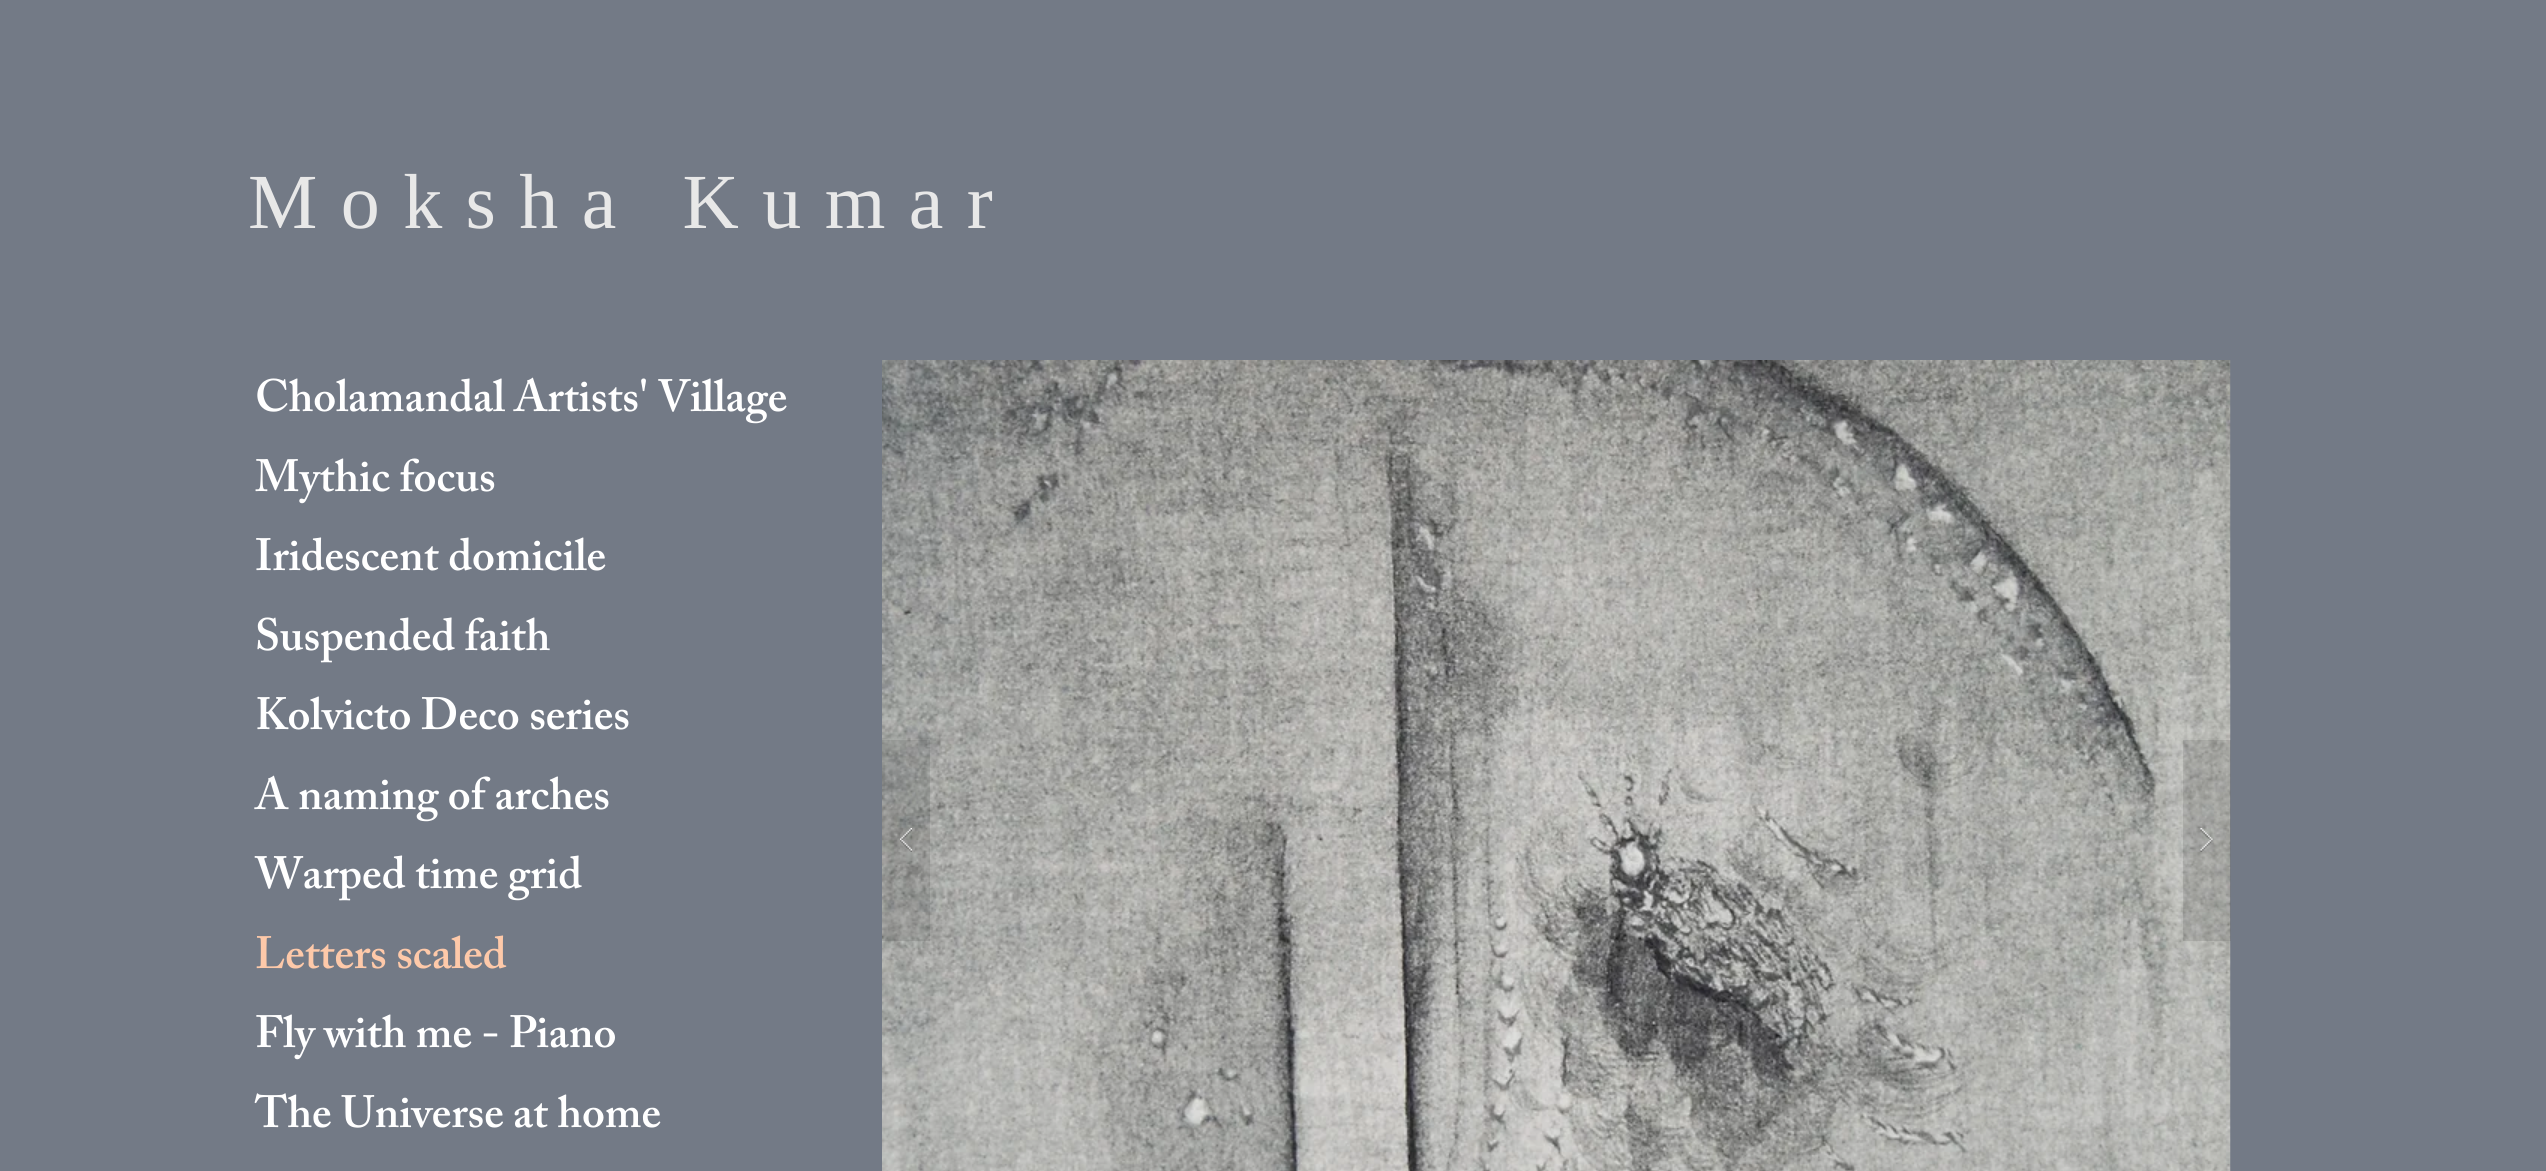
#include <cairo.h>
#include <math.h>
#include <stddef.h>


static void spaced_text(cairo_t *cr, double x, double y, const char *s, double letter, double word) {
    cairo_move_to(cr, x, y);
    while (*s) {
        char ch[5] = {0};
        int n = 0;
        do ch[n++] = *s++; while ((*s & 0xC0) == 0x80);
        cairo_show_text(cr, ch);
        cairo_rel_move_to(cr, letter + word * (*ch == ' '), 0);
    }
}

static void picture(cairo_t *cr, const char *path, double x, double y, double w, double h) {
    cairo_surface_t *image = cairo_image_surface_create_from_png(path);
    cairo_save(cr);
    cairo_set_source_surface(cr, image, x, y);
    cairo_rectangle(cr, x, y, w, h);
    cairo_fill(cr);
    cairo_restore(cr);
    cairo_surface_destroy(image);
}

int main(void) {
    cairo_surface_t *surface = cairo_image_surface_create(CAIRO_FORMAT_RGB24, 2546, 1171);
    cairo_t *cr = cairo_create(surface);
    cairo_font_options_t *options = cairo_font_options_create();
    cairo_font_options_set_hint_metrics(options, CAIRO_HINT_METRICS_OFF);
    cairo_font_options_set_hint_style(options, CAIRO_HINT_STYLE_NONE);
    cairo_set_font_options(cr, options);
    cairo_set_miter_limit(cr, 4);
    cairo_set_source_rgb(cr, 0.451, 0.478, 0.525);
    cairo_paint(cr);
    cairo_select_font_face(cr, "Liberation Serif", CAIRO_FONT_SLANT_NORMAL, CAIRO_FONT_WEIGHT_NORMAL);
    cairo_set_font_size(cr, 78);
    cairo_set_source_rgb(cr, 0.91, 0.91, 0.91);
    spaced_text(cr, 248, 228, "Moksha Kumar", 23.4, 0);
    cairo_select_font_face(cr, "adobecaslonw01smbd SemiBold", CAIRO_FONT_SLANT_NORMAL, CAIRO_FONT_WEIGHT_NORMAL);
    cairo_set_font_size(cr, 45);
    cairo_set_source_rgb(cr, 1, 1, 1);
    cairo_move_to(cr, 255, 411);
    cairo_show_text(cr, "Cholamandal Artists' Village");
    cairo_move_to(cr, 255, 491);
    cairo_show_text(cr, "Mythic focus");
    cairo_move_to(cr, 255, 570);
    cairo_show_text(cr, "Iridescent domicile");
    cairo_move_to(cr, 255, 650);
    cairo_show_text(cr, "Suspended faith");
    cairo_move_to(cr, 255, 729);
    cairo_show_text(cr, "Kolvicto Deco series");
    cairo_move_to(cr, 255, 809);
    cairo_show_text(cr, "A naming of arches");
    cairo_move_to(cr, 255, 888);
    cairo_show_text(cr, "Warped time grid");
    cairo_set_source_rgb(cr, 0.996, 0.788, 0.663);
    cairo_move_to(cr, 255, 968);
    cairo_show_text(cr, "Letters scaled");
    cairo_set_source_rgb(cr, 1, 1, 1);
    cairo_move_to(cr, 255, 1047);
    cairo_show_text(cr, "Fly with me - Piano");
    cairo_move_to(cr, 255, 1127);
    cairo_show_text(cr, "The Universe at home");
    picture(cr, "img1.png", 882, 360, 1349, 811);
    cairo_set_source_rgba(cr, 0.176, 0.176, 0.176, 0.14);
    cairo_rectangle(cr, 882, 740, 48, 201);
    cairo_fill(cr);
    picture(cr, "img2.png", 900, 828, 12, 24);
    cairo_rectangle(cr, 2183, 740, 48, 201);
    cairo_fill(cr);
    picture(cr, "img3.png", 2200, 828, 13, 24);
    cairo_surface_write_to_png(surface, "page.png");
    cairo_font_options_destroy(options);
    cairo_destroy(cr);
    cairo_surface_destroy(surface);
    return 0;
}
